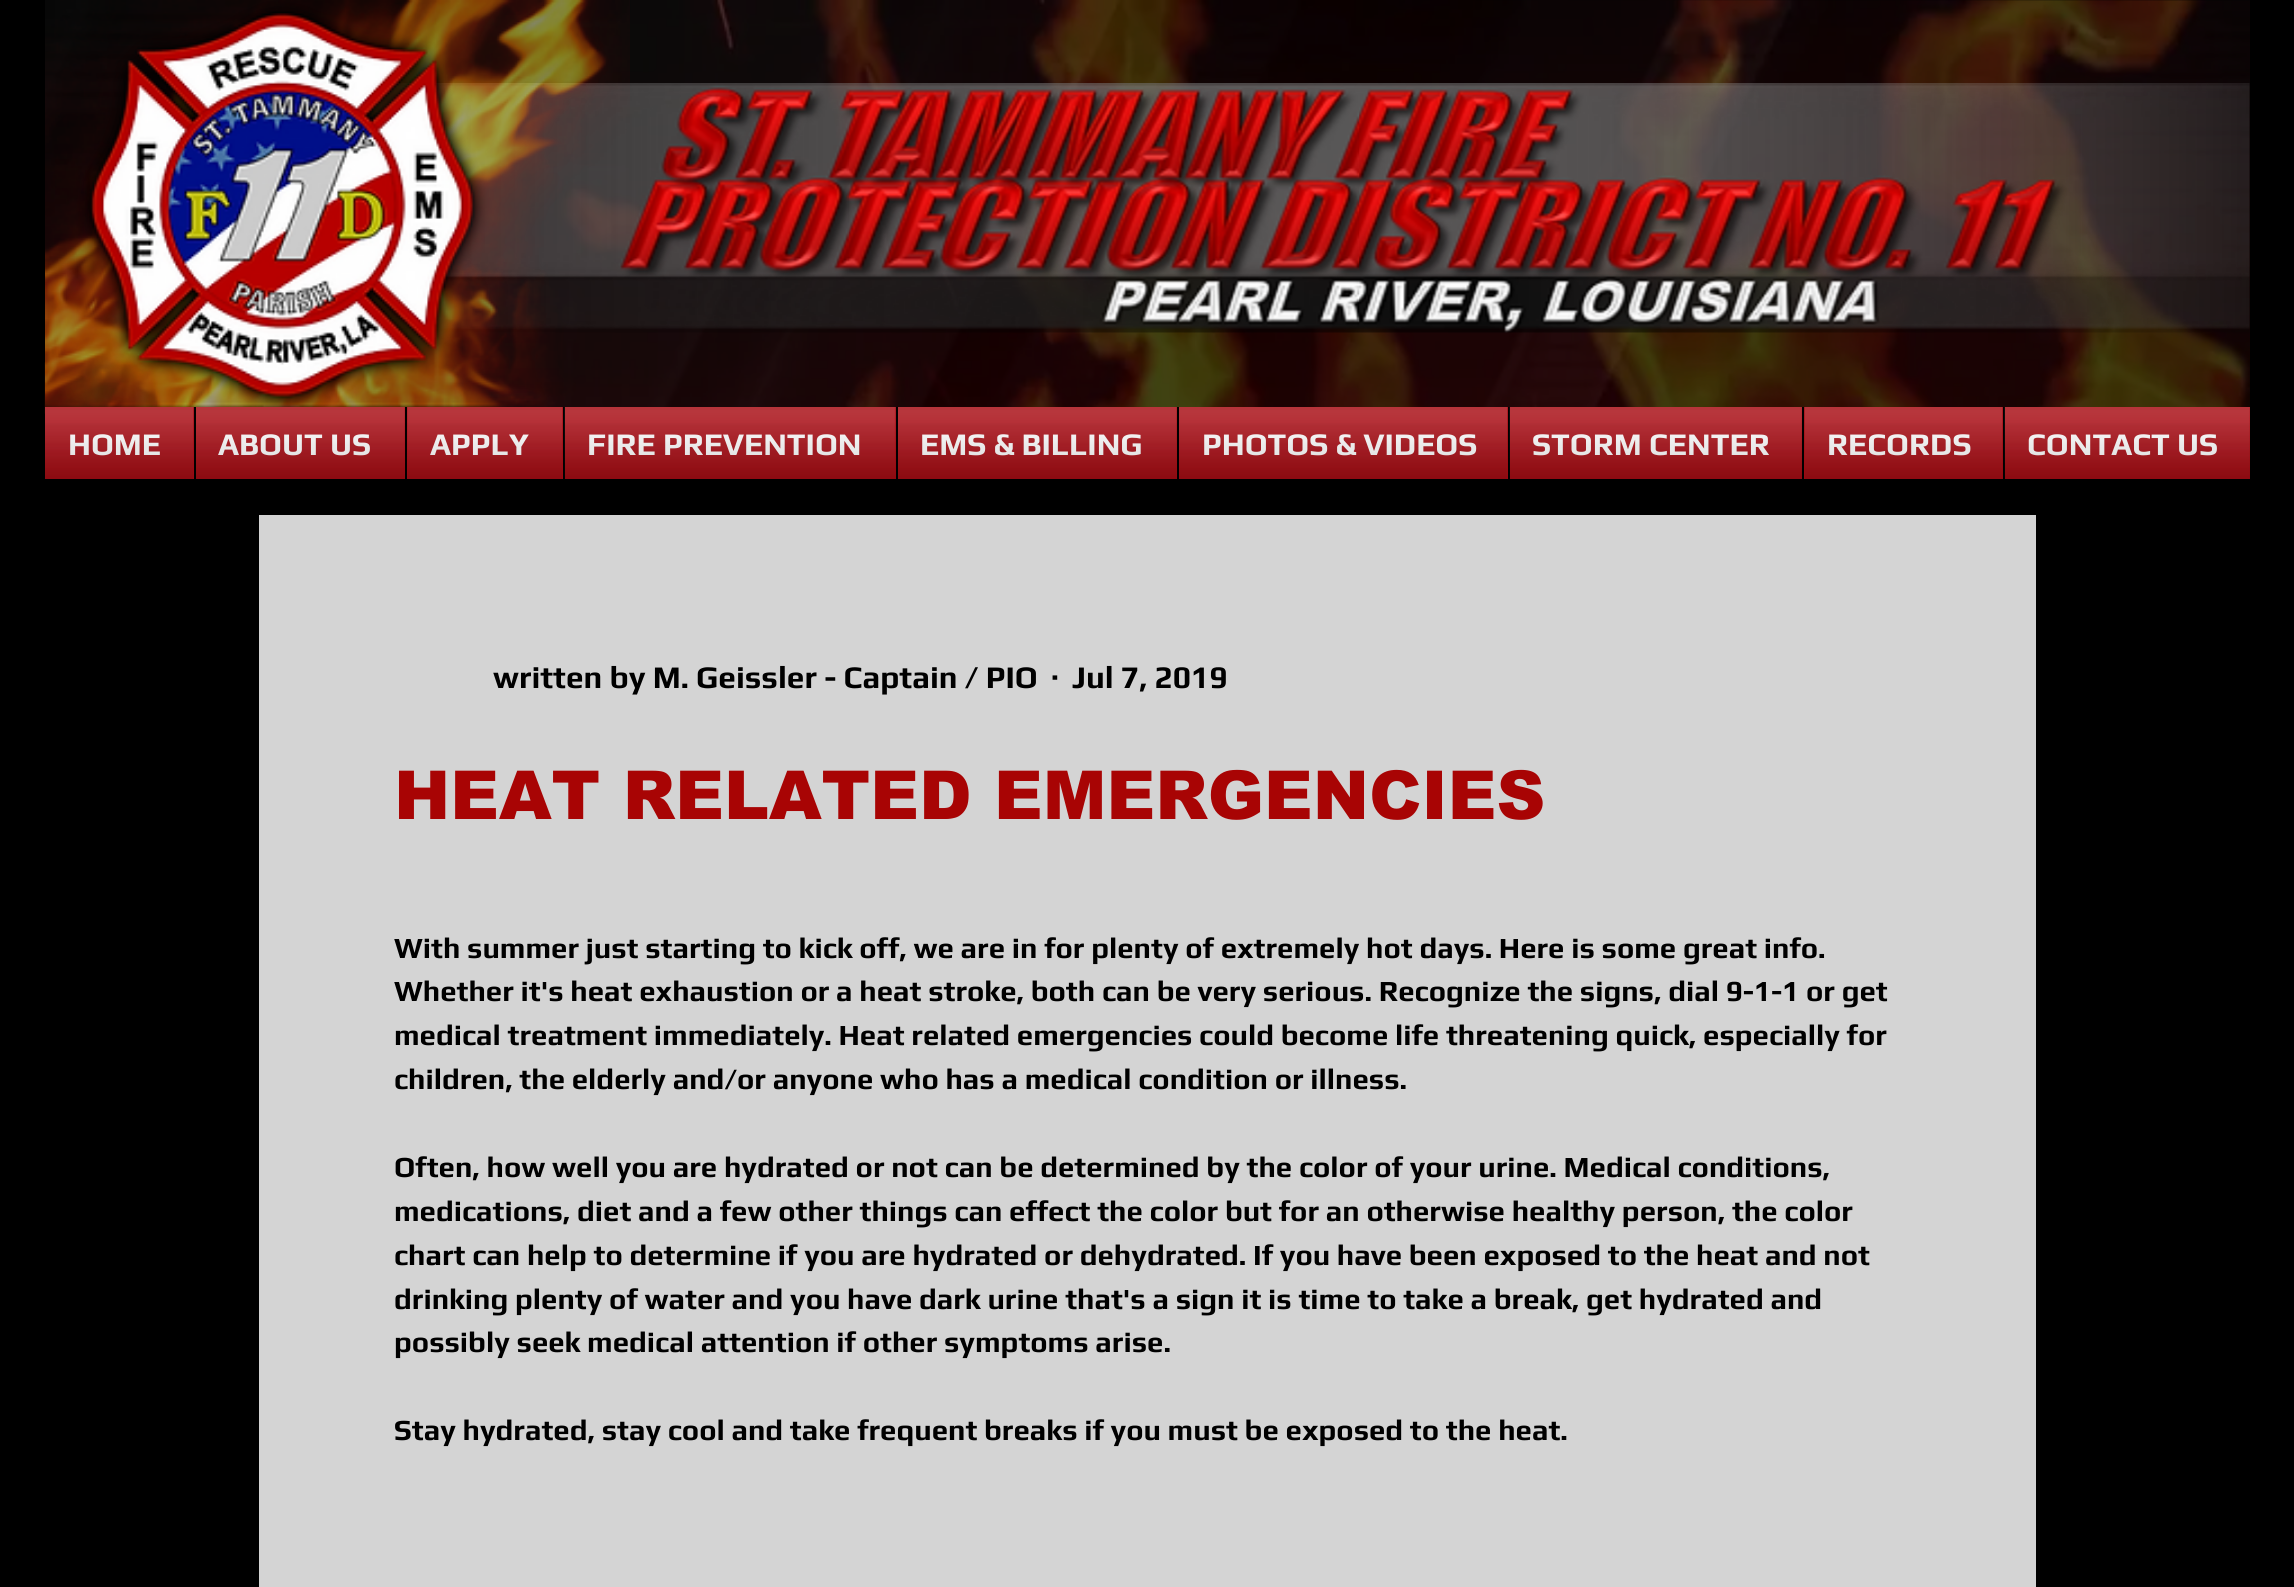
#include <cairo.h>
#include <math.h>
#include <stddef.h>


static void picture(cairo_t *cr, const char *path, double x, double y, double w, double h) {
    cairo_surface_t *image = cairo_image_surface_create_from_png(path);
    cairo_save(cr);
    cairo_set_source_surface(cr, image, x, y);
    cairo_rectangle(cr, x, y, w, h);
    cairo_fill(cr);
    cairo_restore(cr);
    cairo_surface_destroy(image);
}

int main(void) {
    cairo_surface_t *surface = cairo_image_surface_create(CAIRO_FORMAT_RGB24, 2294, 1587);
    cairo_t *cr = cairo_create(surface);
    cairo_font_options_t *options = cairo_font_options_create();
    cairo_font_options_set_hint_metrics(options, CAIRO_HINT_METRICS_OFF);
    cairo_font_options_set_hint_style(options, CAIRO_HINT_STYLE_NONE);
    cairo_set_font_options(cr, options);
    cairo_set_miter_limit(cr, 4);
    cairo_set_source_rgb(cr, 0, 0, 0);
    cairo_paint(cr);
    picture(cr, "img1.png", 44, 0, 2206, 414);
    picture(cr, "img3.png", 360, 83, 1890, 250);
    picture(cr, "img2.png", 45, 0, 585, 407);
    cairo_set_source_rgb(cr, 0.651, 0.027, 0.055);
    cairo_rectangle(cr, 45, 407, 149, 72);
    cairo_fill(cr);
    cairo_select_font_face(cr, "Play", CAIRO_FONT_SLANT_NORMAL, CAIRO_FONT_WEIGHT_BOLD);
    cairo_set_font_size(cr, 31.5);
    cairo_set_source_rgb(cr, 1, 1, 1);
    cairo_move_to(cr, 68, 455);
    cairo_show_text(cr, "HOME");
    picture(cr, "img4.png", 45, 407, 149, 72);
    picture(cr, "img5.png", 45, 423, 149, 56);
    cairo_set_source_rgb(cr, 0.651, 0.027, 0.055);
    cairo_rectangle(cr, 196, 407, 209, 72);
    cairo_fill(cr);
    cairo_set_source_rgb(cr, 0, 0, 0);
    cairo_rectangle(cr, 194, 407, 2, 7);
    cairo_fill(cr);
    cairo_set_source_rgb(cr, 1, 1, 1);
    cairo_move_to(cr, 218, 455);
    cairo_show_text(cr, "ABOUT US");
    picture(cr, "img6.png", 196, 407, 209, 72);
    picture(cr, "img7.png", 196, 423, 209, 56);
    cairo_set_source_rgb(cr, 0.651, 0.027, 0.055);
    cairo_rectangle(cr, 407, 407, 156, 72);
    cairo_fill(cr);
    cairo_set_source_rgb(cr, 0, 0, 0);
    cairo_rectangle(cr, 405, 407, 2, 7);
    cairo_fill(cr);
    cairo_set_source_rgb(cr, 1, 1, 1);
    cairo_move_to(cr, 430, 455);
    cairo_show_text(cr, "APPLY");
    picture(cr, "img8.png", 407, 407, 156, 72);
    picture(cr, "img9.png", 407, 423, 156, 56);
    cairo_set_source_rgb(cr, 0.651, 0.027, 0.055);
    cairo_rectangle(cr, 565, 407, 331, 72);
    cairo_fill(cr);
    cairo_set_source_rgb(cr, 0, 0, 0);
    cairo_rectangle(cr, 563, 407, 2, 7);
    cairo_fill(cr);
    cairo_set_source_rgb(cr, 1, 1, 1);
    cairo_move_to(cr, 587, 455);
    cairo_show_text(cr, "FIRE PREVENTION");
    picture(cr, "img10.png", 564, 407, 332, 72);
    picture(cr, "img11.png", 565, 423, 331, 56);
    cairo_set_source_rgb(cr, 0.651, 0.027, 0.055);
    cairo_rectangle(cr, 898, 407, 279, 72);
    cairo_fill(cr);
    cairo_set_source_rgb(cr, 0, 0, 0);
    cairo_rectangle(cr, 896, 407, 2, 7);
    cairo_fill(cr);
    cairo_set_source_rgb(cr, 1, 1, 1);
    cairo_move_to(cr, 920, 455);
    cairo_show_text(cr, "EMS & BILLING");
    picture(cr, "img12.png", 898, 407, 279, 72);
    picture(cr, "img13.png", 898, 423, 279, 56);
    cairo_set_source_rgb(cr, 0.651, 0.027, 0.055);
    cairo_rectangle(cr, 1179, 407, 329, 72);
    cairo_fill(cr);
    cairo_set_source_rgb(cr, 0, 0, 0);
    cairo_rectangle(cr, 1177, 407, 2, 7);
    cairo_fill(cr);
    cairo_set_source_rgb(cr, 1, 1, 1);
    cairo_move_to(cr, 1202, 455);
    cairo_show_text(cr, "PHOTOS & VIDEOS");
    picture(cr, "img14.png", 1179, 407, 329, 72);
    picture(cr, "img15.png", 1179, 423, 329, 56);
    cairo_set_source_rgb(cr, 0.651, 0.027, 0.055);
    cairo_rectangle(cr, 1510, 407, 292, 72);
    cairo_fill(cr);
    cairo_set_source_rgb(cr, 0, 0, 0);
    cairo_rectangle(cr, 1508, 407, 2, 7);
    cairo_fill(cr);
    cairo_set_source_rgb(cr, 1, 1, 1);
    cairo_move_to(cr, 1532, 455);
    cairo_show_text(cr, "STORM CENTER");
    picture(cr, "img16.png", 1509, 407, 293, 72);
    picture(cr, "img17.png", 1510, 423, 292, 56);
    cairo_set_source_rgb(cr, 0.651, 0.027, 0.055);
    cairo_rectangle(cr, 1804, 407, 199, 72);
    cairo_fill(cr);
    cairo_set_source_rgb(cr, 0, 0, 0);
    cairo_rectangle(cr, 1802, 407, 2, 7);
    cairo_fill(cr);
    cairo_set_source_rgb(cr, 1, 1, 1);
    cairo_move_to(cr, 1827, 455);
    cairo_show_text(cr, "RECORDS");
    picture(cr, "img18.png", 1804, 407, 199, 72);
    picture(cr, "img19.png", 1804, 423, 199, 56);
    cairo_set_source_rgb(cr, 0.651, 0.027, 0.055);
    cairo_rectangle(cr, 2005, 407, 245, 72);
    cairo_fill(cr);
    cairo_set_source_rgb(cr, 0, 0, 0);
    cairo_rectangle(cr, 2003, 407, 2, 7);
    cairo_fill(cr);
    cairo_set_source_rgb(cr, 1, 1, 1);
    cairo_move_to(cr, 2027, 455);
    cairo_show_text(cr, "CONTACT US");
    picture(cr, "img20.png", 2004, 407, 246, 72);
    picture(cr, "img21.png", 2005, 423, 245, 56);
    cairo_set_source_rgb(cr, 0.831, 0.831, 0.831);
    cairo_rectangle(cr, 259, 515, 1777, 1072);
    cairo_fill(cr);
    cairo_set_source_rgb(cr, 0, 0, 0);
    cairo_move_to(cr, 493, 688);
    cairo_show_text(cr, "written by M. Geissler - Captain / PIO");
    cairo_move_to(cr, 1051, 688);
    cairo_show_text(cr, "·");
    cairo_move_to(cr, 1072, 688);
    cairo_show_text(cr, "Jul 7, 2019");
    cairo_select_font_face(cr, "arial Black", CAIRO_FONT_SLANT_NORMAL, CAIRO_FONT_WEIGHT_NORMAL);
    cairo_set_font_size(cr, 67.5);
    cairo_set_source_rgb(cr, 0.659, 0.016, 0.016);
    cairo_move_to(cr, 394, 819);
    cairo_show_text(cr, "HEAT RELATED EMERGENCIES");
    cairo_select_font_face(cr, "Play", CAIRO_FONT_SLANT_NORMAL, CAIRO_FONT_WEIGHT_BOLD);
    cairo_set_font_size(cr, 29.25);
    cairo_set_source_rgb(cr, 0, 0, 0);
    cairo_move_to(cr, 394, 958);
    cairo_show_text(cr, "With summer just starting to kick off, we are in for plenty of extremely hot days. Here is some great info.");
    cairo_move_to(cr, 394, 1001);
    cairo_show_text(cr, "Whether it's heat exhaustion or a heat stroke, both can be very serious. Recognize the signs, dial 9-1-1 or get");
    cairo_move_to(cr, 394, 1045);
    cairo_show_text(cr, "medical treatment immediately. Heat related emergencies could become life threatening quick, especially for");
    cairo_move_to(cr, 394, 1089);
    cairo_show_text(cr, "children, the elderly and/or anyone who has a medical condition or illness.");
    cairo_move_to(cr, 394, 1177);
    cairo_show_text(cr, "Often, how well you are hydrated or not can be determined by the color of your urine. Medical conditions,");
    cairo_move_to(cr, 394, 1221);
    cairo_show_text(cr, "medications, diet and a few other things can effect the color but for an otherwise healthy person, the color");
    cairo_move_to(cr, 394, 1265);
    cairo_show_text(cr, "chart can help to determine if you are hydrated or dehydrated. If you have been exposed to the heat and not");
    cairo_move_to(cr, 394, 1309);
    cairo_show_text(cr, "drinking plenty of water and you have dark urine that's a sign it is time to take a break, get hydrated and");
    cairo_move_to(cr, 394, 1352);
    cairo_show_text(cr, "possibly seek medical attention if other symptoms arise.");
    cairo_move_to(cr, 394, 1440);
    cairo_show_text(cr, "Stay hydrated, stay cool and take frequent breaks if you must be exposed to the heat.");
    cairo_surface_write_to_png(surface, "page.png");
    cairo_font_options_destroy(options);
    cairo_destroy(cr);
    cairo_surface_destroy(surface);
    return 0;
}
